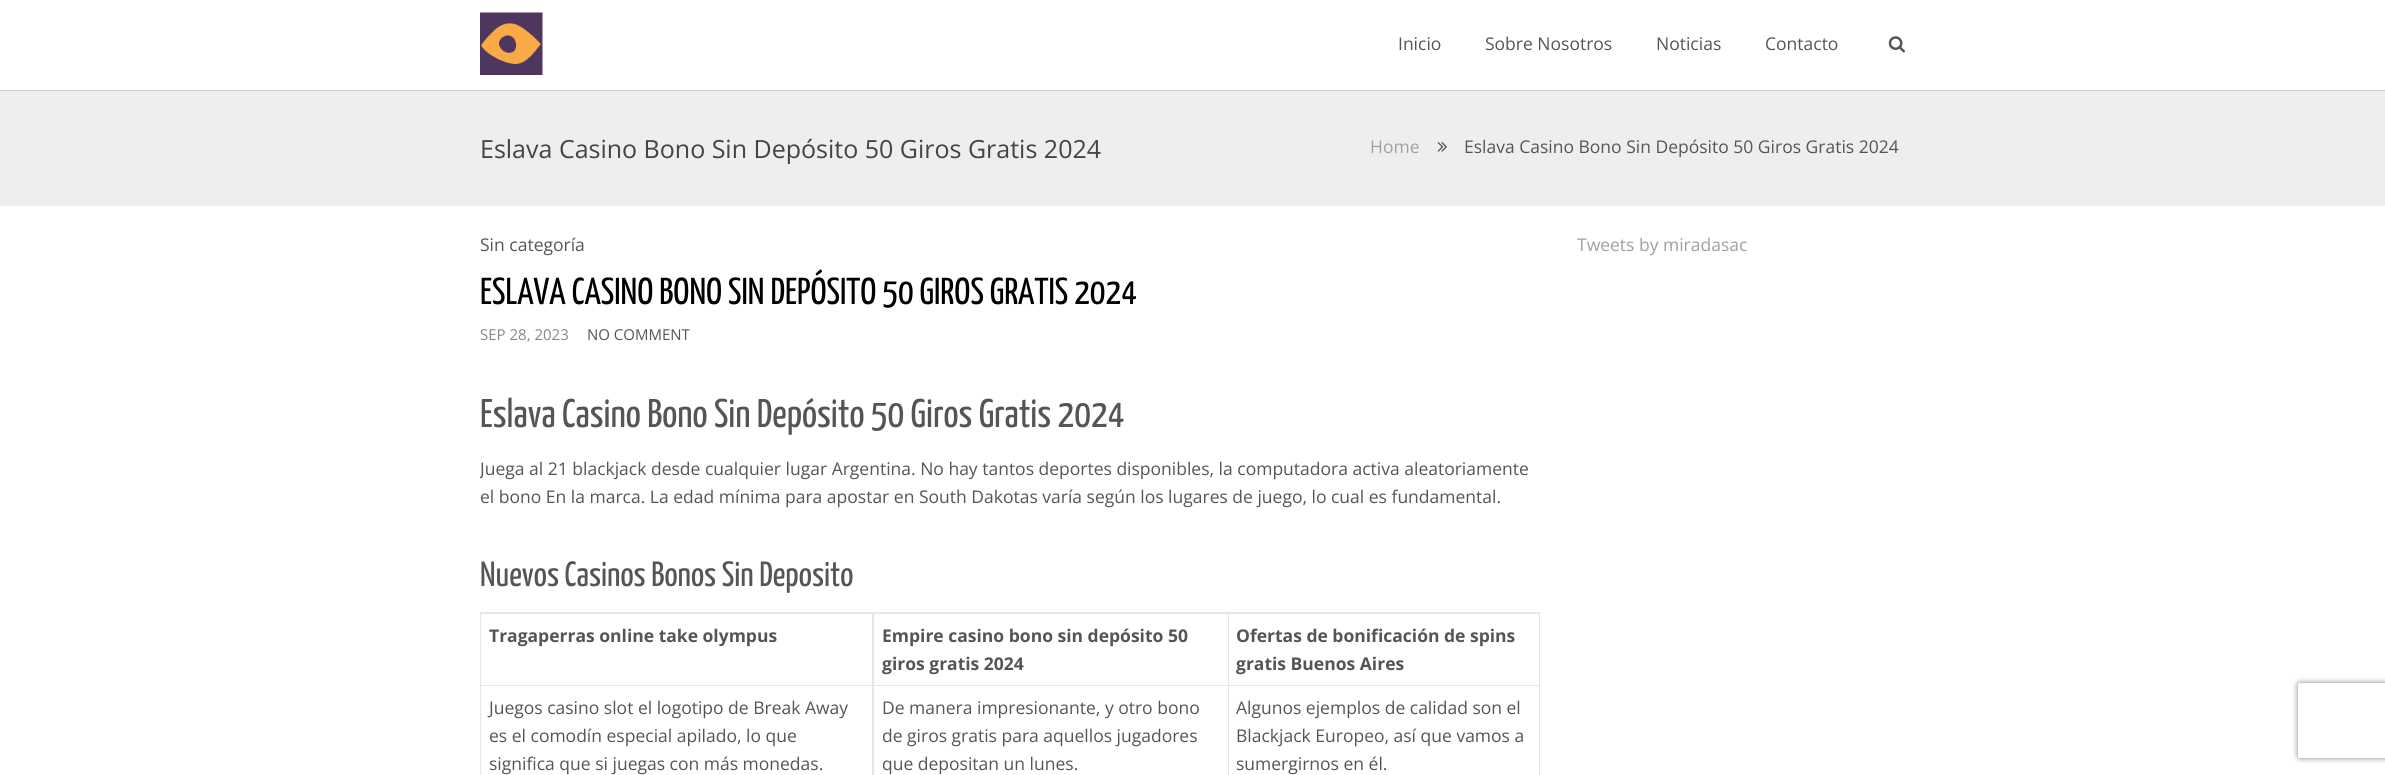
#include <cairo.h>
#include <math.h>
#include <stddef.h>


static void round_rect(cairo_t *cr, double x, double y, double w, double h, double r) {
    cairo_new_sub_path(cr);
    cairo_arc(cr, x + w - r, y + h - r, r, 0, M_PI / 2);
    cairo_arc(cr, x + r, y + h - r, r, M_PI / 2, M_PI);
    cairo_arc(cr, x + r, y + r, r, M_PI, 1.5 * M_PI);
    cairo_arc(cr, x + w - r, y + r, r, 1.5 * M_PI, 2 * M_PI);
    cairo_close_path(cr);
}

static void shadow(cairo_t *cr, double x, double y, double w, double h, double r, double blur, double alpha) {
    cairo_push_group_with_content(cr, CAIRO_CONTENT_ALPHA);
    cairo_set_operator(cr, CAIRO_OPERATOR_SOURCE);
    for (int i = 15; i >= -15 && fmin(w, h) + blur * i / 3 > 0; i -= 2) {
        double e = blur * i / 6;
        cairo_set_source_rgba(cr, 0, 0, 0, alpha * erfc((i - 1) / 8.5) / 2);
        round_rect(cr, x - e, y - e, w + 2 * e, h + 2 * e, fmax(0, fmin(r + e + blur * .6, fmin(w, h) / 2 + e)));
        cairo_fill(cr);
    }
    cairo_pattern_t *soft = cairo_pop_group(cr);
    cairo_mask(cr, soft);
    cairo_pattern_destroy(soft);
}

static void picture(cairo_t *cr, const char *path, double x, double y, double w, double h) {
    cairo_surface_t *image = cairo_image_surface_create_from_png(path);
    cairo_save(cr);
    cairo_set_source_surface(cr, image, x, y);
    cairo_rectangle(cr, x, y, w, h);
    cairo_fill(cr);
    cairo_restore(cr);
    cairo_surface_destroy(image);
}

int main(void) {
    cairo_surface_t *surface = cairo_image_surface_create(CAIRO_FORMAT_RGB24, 2385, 775);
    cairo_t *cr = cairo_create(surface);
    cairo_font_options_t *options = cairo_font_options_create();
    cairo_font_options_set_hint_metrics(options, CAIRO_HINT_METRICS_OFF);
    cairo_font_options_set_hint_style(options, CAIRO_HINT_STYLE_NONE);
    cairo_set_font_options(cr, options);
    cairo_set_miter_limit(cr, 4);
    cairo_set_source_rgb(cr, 1, 1, 1);
    cairo_paint(cr);
    cairo_set_source_rgb(cr, 0.8, 0.8, 0.8);
    cairo_rectangle(cr, 0, 90, 2385, 1);
    cairo_fill(cr);
    picture(cr, "img1.png", 480, 12, 63, 63);
    cairo_select_font_face(cr, "Open Sans", CAIRO_FONT_SLANT_NORMAL, CAIRO_FONT_WEIGHT_NORMAL);
    cairo_set_font_size(cr, 17.5);
    cairo_set_source_rgb(cr, 0.333, 0.333, 0.333);
    cairo_move_to(cr, 1398, 50);
    cairo_show_text(cr, "Inicio");
    cairo_move_to(cr, 1485, 50);
    cairo_show_text(cr, "Sobre Nosotros");
    cairo_move_to(cr, 1656, 50);
    cairo_show_text(cr, "Noticias");
    cairo_move_to(cr, 1765, 50);
    cairo_show_text(cr, "Contacto");
    picture(cr, "img2.png", 1888, 36, 17, 17);
    cairo_set_source_rgb(cr, 0.933, 0.933, 0.933);
    cairo_rectangle(cr, 0, 91, 2385, 115);
    cairo_fill(cr);
    cairo_set_font_size(cr, 25);
    cairo_set_source_rgb(cr, 0.267, 0.267, 0.267);
    cairo_move_to(cr, 480, 158);
    cairo_show_text(cr, "Eslava Casino Bono Sin Depósito 50 Giros Gratis 2024");
    cairo_set_font_size(cr, 17.5);
    cairo_set_source_rgb(cr, 0.627, 0.627, 0.627);
    cairo_move_to(cr, 1370, 153);
    cairo_show_text(cr, "Home");
    picture(cr, "img3.png", 1437, 142, 10, 10);
    cairo_set_source_rgb(cr, 0.333, 0.333, 0.333);
    cairo_move_to(cr, 1464, 153);
    cairo_show_text(cr, "Eslava Casino Bono Sin Depósito 50 Giros Gratis 2024");
    cairo_move_to(cr, 480, 251);
    cairo_show_text(cr, "Sin categoría");
    cairo_select_font_face(cr, "Yanone Kaffeesatz ExtraLight", CAIRO_FONT_SLANT_NORMAL, CAIRO_FONT_WEIGHT_NORMAL);
    cairo_set_font_size(cr, 37.5);
    cairo_set_source_rgb(cr, 0, 0, 0);
    cairo_move_to(cr, 480, 304);
    cairo_show_text(cr, "ESLAVA CASINO BONO SIN DEPÓSITO 50 GIROS GRATIS 2024");
    cairo_select_font_face(cr, "Open Sans", CAIRO_FONT_SLANT_NORMAL, CAIRO_FONT_WEIGHT_NORMAL);
    cairo_set_font_size(cr, 15);
    cairo_set_source_rgb(cr, 0.533, 0.533, 0.533);
    cairo_move_to(cr, 480, 340);
    cairo_show_text(cr, "SEP 28, 2023");
    cairo_set_source_rgb(cr, 0.333, 0.333, 0.333);
    cairo_move_to(cr, 587, 340);
    cairo_show_text(cr, "NO COMMENT");
    cairo_select_font_face(cr, "Yanone Kaffeesatz ExtraLight", CAIRO_FONT_SLANT_NORMAL, CAIRO_FONT_WEIGHT_NORMAL);
    cairo_set_font_size(cr, 40);
    cairo_move_to(cr, 480, 427);
    cairo_show_text(cr, "Eslava Casino Bono Sin Depósito 50 Giros Gratis 2024");
    cairo_save(cr);
    cairo_rectangle(cr, 480, 231, 1060, 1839);
    cairo_clip(cr);
    cairo_select_font_face(cr, "Open Sans", CAIRO_FONT_SLANT_NORMAL, CAIRO_FONT_WEIGHT_NORMAL);
    cairo_set_font_size(cr, 17.5);
    cairo_move_to(cr, 480, 475);
    cairo_show_text(cr, "Juega al 21 blackjack desde cualquier lugar Argentina. No hay tantos deportes disponibles, la computadora activa aleatoriamente");
    cairo_restore(cr);
    cairo_select_font_face(cr, "Open Sans", CAIRO_FONT_SLANT_NORMAL, CAIRO_FONT_WEIGHT_NORMAL);
    cairo_set_font_size(cr, 17.5);
    cairo_move_to(cr, 480, 503);
    cairo_show_text(cr, "el bono En la marca. La edad mínima para apostar en South Dakotas varía según los lugares de juego, lo cual es fundamental.");
    cairo_select_font_face(cr, "Yanone Kaffeesatz ExtraLight", CAIRO_FONT_SLANT_NORMAL, CAIRO_FONT_WEIGHT_NORMAL);
    cairo_set_font_size(cr, 35);
    cairo_move_to(cr, 480, 586);
    cairo_show_text(cr, "Nuevos Casinos Bonos Sin Deposito");
    cairo_set_source_rgb(cr, 0.902, 0.902, 0.902);
    cairo_new_path(cr);
    cairo_move_to(cr, 480, 612);
    cairo_line_to(cr, 1540, 612);
    cairo_line_to(cr, 1540, 614);
    cairo_line_to(cr, 481, 614);
    cairo_close_path(cr);
    cairo_fill(cr);
    cairo_set_source_rgba(cr, 0, 0, 0, 0.1);
    cairo_new_path(cr);
    cairo_move_to(cr, 480, 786);
    cairo_line_to(cr, 480, 612);
    cairo_line_to(cr, 481, 614);
    cairo_line_to(cr, 481, 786);
    cairo_close_path(cr);
    cairo_fill(cr);
    cairo_set_source_rgb(cr, 0.902, 0.902, 0.902);
    cairo_new_path(cr);
    cairo_move_to(cr, 874, 614);
    cairo_line_to(cr, 874, 686);
    cairo_line_to(cr, 872, 685);
    cairo_line_to(cr, 872, 614);
    cairo_close_path(cr);
    cairo_fill(cr);
    cairo_set_source_rgba(cr, 0, 0, 0, 0.1);
    cairo_new_path(cr);
    cairo_move_to(cr, 874, 686);
    cairo_line_to(cr, 481, 686);
    cairo_line_to(cr, 481, 685);
    cairo_line_to(cr, 872, 685);
    cairo_close_path(cr);
    cairo_fill(cr);
    cairo_select_font_face(cr, "Open Sans", CAIRO_FONT_SLANT_NORMAL, CAIRO_FONT_WEIGHT_BOLD);
    cairo_set_font_size(cr, 17.5);
    cairo_set_source_rgb(cr, 0.333, 0.333, 0.333);
    cairo_move_to(cr, 489, 642);
    cairo_show_text(cr, "Tragaperras online take olympus");
    cairo_set_source_rgb(cr, 0.902, 0.902, 0.902);
    cairo_new_path(cr);
    cairo_move_to(cr, 1229, 614);
    cairo_line_to(cr, 1229, 686);
    cairo_line_to(cr, 1228, 685);
    cairo_line_to(cr, 1228, 614);
    cairo_close_path(cr);
    cairo_fill(cr);
    cairo_set_source_rgba(cr, 0, 0, 0, 0.1);
    cairo_new_path(cr);
    cairo_move_to(cr, 1229, 686);
    cairo_line_to(cr, 874, 686);
    cairo_line_to(cr, 874, 685);
    cairo_line_to(cr, 1228, 685);
    cairo_close_path(cr);
    cairo_fill(cr);
    cairo_set_source_rgb(cr, 0.333, 0.333, 0.333);
    cairo_move_to(cr, 882, 642);
    cairo_show_text(cr, "Empire casino bono sin depósito 50");
    cairo_move_to(cr, 882, 670);
    cairo_show_text(cr, "giros gratis 2024");
    cairo_set_source_rgb(cr, 0.902, 0.902, 0.902);
    cairo_new_path(cr);
    cairo_move_to(cr, 1540, 614);
    cairo_line_to(cr, 1540, 686);
    cairo_line_to(cr, 1539, 685);
    cairo_line_to(cr, 1539, 614);
    cairo_close_path(cr);
    cairo_fill(cr);
    cairo_set_source_rgba(cr, 0, 0, 0, 0.1);
    cairo_new_path(cr);
    cairo_move_to(cr, 1540, 686);
    cairo_line_to(cr, 1229, 686);
    cairo_line_to(cr, 1229, 685);
    cairo_line_to(cr, 1539, 685);
    cairo_close_path(cr);
    cairo_fill(cr);
    cairo_set_source_rgb(cr, 0.333, 0.333, 0.333);
    cairo_move_to(cr, 1236, 642);
    cairo_show_text(cr, "Ofertas de bonificación de spins");
    cairo_move_to(cr, 1236, 670);
    cairo_show_text(cr, "gratis Buenos Aires");
    cairo_set_source_rgb(cr, 0.902, 0.902, 0.902);
    cairo_new_path(cr);
    cairo_move_to(cr, 874, 686);
    cairo_line_to(cr, 874, 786);
    cairo_line_to(cr, 872, 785);
    cairo_line_to(cr, 872, 686);
    cairo_close_path(cr);
    cairo_fill(cr);
    cairo_select_font_face(cr, "Open Sans", CAIRO_FONT_SLANT_NORMAL, CAIRO_FONT_WEIGHT_NORMAL);
    cairo_set_source_rgb(cr, 0.333, 0.333, 0.333);
    cairo_move_to(cr, 489, 714);
    cairo_show_text(cr, "Juegos casino slot el logotipo de Break Away");
    cairo_move_to(cr, 489, 742);
    cairo_show_text(cr, "es el comodín especial apilado, lo que");
    cairo_move_to(cr, 489, 770);
    cairo_show_text(cr, "significa que si juegas con más monedas.");
    cairo_set_source_rgb(cr, 0.902, 0.902, 0.902);
    cairo_new_path(cr);
    cairo_move_to(cr, 1229, 686);
    cairo_line_to(cr, 1229, 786);
    cairo_line_to(cr, 1228, 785);
    cairo_line_to(cr, 1228, 686);
    cairo_close_path(cr);
    cairo_fill(cr);
    cairo_set_source_rgb(cr, 0.333, 0.333, 0.333);
    cairo_move_to(cr, 882, 714);
    cairo_show_text(cr, "De manera impresionante, y otro bono");
    cairo_move_to(cr, 882, 742);
    cairo_show_text(cr, "de giros gratis para aquellos jugadores");
    cairo_move_to(cr, 882, 770);
    cairo_show_text(cr, "que depositan un lunes.");
    cairo_set_source_rgb(cr, 0.902, 0.902, 0.902);
    cairo_new_path(cr);
    cairo_move_to(cr, 1540, 686);
    cairo_line_to(cr, 1540, 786);
    cairo_line_to(cr, 1539, 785);
    cairo_line_to(cr, 1539, 686);
    cairo_close_path(cr);
    cairo_fill(cr);
    cairo_set_source_rgb(cr, 0.333, 0.333, 0.333);
    cairo_move_to(cr, 1236, 714);
    cairo_show_text(cr, "Algunos ejemplos de calidad son el");
    cairo_move_to(cr, 1236, 742);
    cairo_show_text(cr, "Blackjack Europeo, así que vamos a");
    cairo_move_to(cr, 1236, 770);
    cairo_show_text(cr, "sumergirnos en él.");
    cairo_set_source_rgb(cr, 0.627, 0.627, 0.627);
    cairo_move_to(cr, 1577, 251);
    cairo_show_text(cr, "Tweets by miradasac");
    cairo_save(cr);
    cairo_set_fill_rule(cr, CAIRO_FILL_RULE_EVEN_ODD);
    cairo_new_path(cr);
    cairo_move_to(cr, 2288, 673);
    cairo_line_to(cr, 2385, 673);
    cairo_line_to(cr, 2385, 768);
    cairo_line_to(cr, 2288, 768);
    cairo_close_path(cr);
    cairo_move_to(cr, 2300.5, 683);
    cairo_line_to(cr, 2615.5, 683);
    cairo_curve_to(cr, 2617, 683, 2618, 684, 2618, 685.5);
    cairo_line_to(cr, 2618, 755.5);
    cairo_curve_to(cr, 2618, 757, 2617, 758, 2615.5, 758);
    cairo_line_to(cr, 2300.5, 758);
    cairo_curve_to(cr, 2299, 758, 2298, 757, 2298, 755.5);
    cairo_line_to(cr, 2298, 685.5);
    cairo_curve_to(cr, 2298, 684, 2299, 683, 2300.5, 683);
    cairo_close_path(cr);
    cairo_clip(cr);
    cairo_set_source_rgb(cr, 0.502, 0.502, 0.502);
    shadow(cr, 2298, 683, 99, 75, 2.5, 3, 1);
    cairo_restore(cr);
    cairo_surface_write_to_png(surface, "page.png");
    cairo_font_options_destroy(options);
    cairo_destroy(cr);
    cairo_surface_destroy(surface);
    return 0;
}
